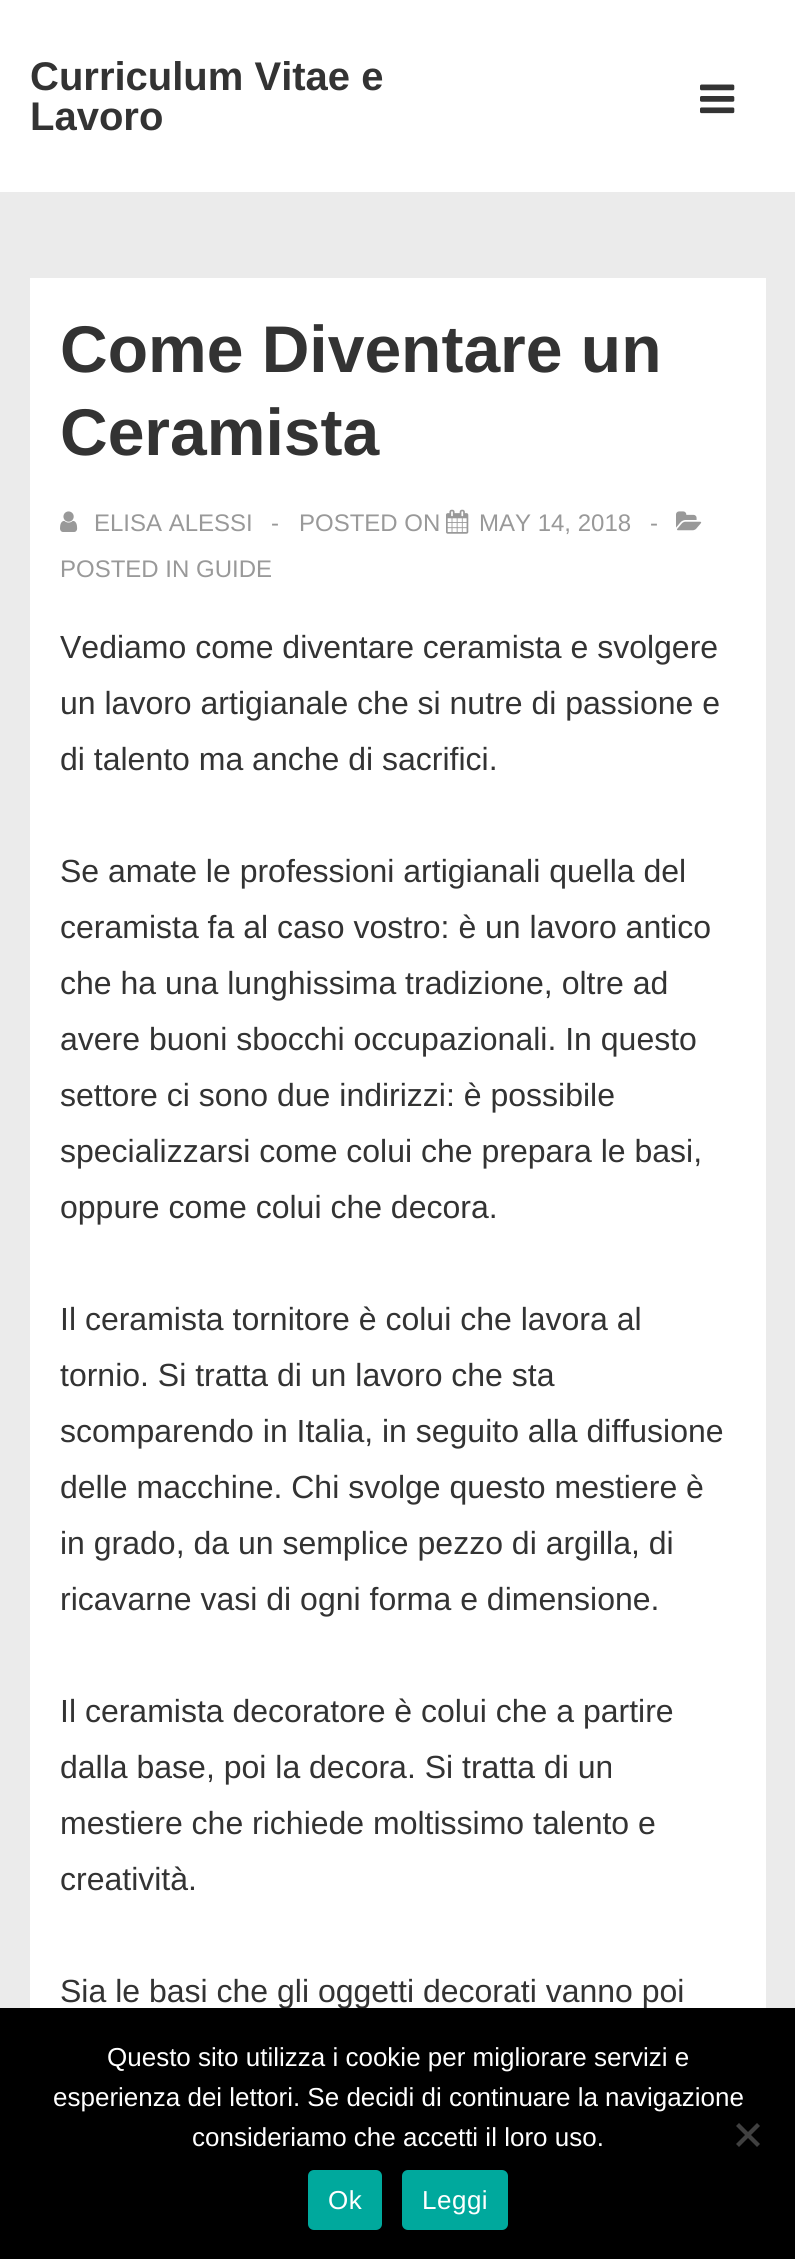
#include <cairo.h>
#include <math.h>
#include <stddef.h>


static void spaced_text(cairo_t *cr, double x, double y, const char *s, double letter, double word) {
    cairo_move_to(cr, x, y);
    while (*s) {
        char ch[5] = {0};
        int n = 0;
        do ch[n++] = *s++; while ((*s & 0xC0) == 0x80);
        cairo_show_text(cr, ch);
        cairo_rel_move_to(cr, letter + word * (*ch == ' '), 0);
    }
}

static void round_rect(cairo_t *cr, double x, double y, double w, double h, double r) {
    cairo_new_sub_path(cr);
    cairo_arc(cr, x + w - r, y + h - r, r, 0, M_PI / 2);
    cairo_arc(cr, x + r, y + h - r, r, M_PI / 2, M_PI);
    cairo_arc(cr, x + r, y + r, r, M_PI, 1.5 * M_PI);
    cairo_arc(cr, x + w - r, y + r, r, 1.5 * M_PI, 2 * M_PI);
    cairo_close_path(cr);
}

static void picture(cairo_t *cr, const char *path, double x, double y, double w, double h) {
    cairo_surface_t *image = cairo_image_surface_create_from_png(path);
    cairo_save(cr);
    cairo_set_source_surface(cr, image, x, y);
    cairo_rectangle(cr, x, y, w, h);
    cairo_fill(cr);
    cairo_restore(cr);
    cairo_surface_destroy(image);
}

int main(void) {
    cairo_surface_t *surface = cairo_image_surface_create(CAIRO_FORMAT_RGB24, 795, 2259);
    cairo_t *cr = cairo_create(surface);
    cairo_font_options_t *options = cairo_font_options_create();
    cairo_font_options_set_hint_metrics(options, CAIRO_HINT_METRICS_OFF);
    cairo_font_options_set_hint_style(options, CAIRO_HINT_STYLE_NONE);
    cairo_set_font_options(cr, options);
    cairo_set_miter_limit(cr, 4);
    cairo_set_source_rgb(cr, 0.918, 0.918, 0.918);
    cairo_paint(cr);
    cairo_set_source_rgb(cr, 1, 1, 1);
    cairo_rectangle(cr, 0, 0, 795, 192);
    cairo_fill(cr);
    cairo_select_font_face(cr, "Liberation Sans", CAIRO_FONT_SLANT_NORMAL, CAIRO_FONT_WEIGHT_BOLD);
    cairo_set_font_size(cr, 40);
    cairo_set_source_rgb(cr, 0.2, 0.2, 0.2);
    cairo_move_to(cr, 30, 90);
    cairo_show_text(cr, "Curriculum Vitae e");
    cairo_move_to(cr, 30, 130);
    cairo_show_text(cr, "Lavoro");
    picture(cr, "img1.png", 700, 84, 35, 30);
    cairo_set_source_rgb(cr, 1, 1, 1);
    cairo_rectangle(cr, 30, 278, 736, 1730);
    cairo_fill(cr);
    cairo_set_font_size(cr, 66);
    cairo_set_source_rgb(cr, 0.2, 0.2, 0.2);
    cairo_move_to(cr, 60, 372);
    cairo_show_text(cr, "Come Diventare un");
    cairo_move_to(cr, 60, 455);
    cairo_show_text(cr, "Ceramista");
    picture(cr, "img2.png", 60, 511, 18, 21);
    cairo_select_font_face(cr, "Liberation Sans", CAIRO_FONT_SLANT_NORMAL, CAIRO_FONT_WEIGHT_NORMAL);
    cairo_set_font_size(cr, 24);
    cairo_set_source_rgb(cr, 0.6, 0.6, 0.6);
    cairo_move_to(cr, 94, 531);
    cairo_show_text(cr, "ELISA ALESSI");
    cairo_move_to(cr, 271, 531);
    cairo_show_text(cr, "-");
    cairo_move_to(cr, 299, 531);
    cairo_show_text(cr, "POSTED ON");
    picture(cr, "img3.png", 446, 509, 23, 25);
    cairo_move_to(cr, 479, 531);
    cairo_show_text(cr, "MAY 14, 2018");
    cairo_move_to(cr, 650, 531);
    cairo_show_text(cr, "-");
    picture(cr, "img4.png", 676, 511, 26, 20);
    cairo_move_to(cr, 60, 577);
    cairo_show_text(cr, "POSTED IN GUIDE");
    cairo_set_font_size(cr, 32);
    cairo_set_source_rgb(cr, 0.2, 0.2, 0.2);
    cairo_move_to(cr, 60, 658);
    cairo_show_text(cr, "Vediamo come diventare ceramista e svolgere");
    cairo_move_to(cr, 60, 714);
    cairo_show_text(cr, "un lavoro artigianale che si nutre di passione e");
    cairo_move_to(cr, 60, 770);
    cairo_show_text(cr, "di talento ma anche di sacrifici.");
    cairo_move_to(cr, 60, 882);
    cairo_show_text(cr, "Se amate le professioni artigianali quella del");
    cairo_move_to(cr, 60, 938);
    cairo_show_text(cr, "ceramista fa al caso vostro: è un lavoro antico");
    cairo_move_to(cr, 60, 994);
    cairo_show_text(cr, "che ha una lunghissima tradizione, oltre ad");
    cairo_move_to(cr, 60, 1050);
    cairo_show_text(cr, "avere buoni sbocchi occupazionali. In questo");
    cairo_move_to(cr, 60, 1106);
    cairo_show_text(cr, "settore ci sono due indirizzi: è possibile");
    cairo_move_to(cr, 60, 1162);
    cairo_show_text(cr, "specializzarsi come colui che prepara le basi,");
    cairo_move_to(cr, 60, 1218);
    cairo_show_text(cr, "oppure come colui che decora.");
    cairo_move_to(cr, 60, 1330);
    cairo_show_text(cr, "Il ceramista tornitore è colui che lavora al");
    cairo_move_to(cr, 60, 1386);
    cairo_show_text(cr, "tornio. Si tratta di un lavoro che sta");
    cairo_move_to(cr, 60, 1442);
    cairo_show_text(cr, "scomparendo in Italia, in seguito alla diffusione");
    cairo_move_to(cr, 60, 1498);
    cairo_show_text(cr, "delle macchine. Chi svolge questo mestiere è");
    cairo_move_to(cr, 60, 1554);
    cairo_show_text(cr, "in grado, da un semplice pezzo di argilla, di");
    cairo_move_to(cr, 60, 1610);
    cairo_show_text(cr, "ricavarne vasi di ogni forma e dimensione.");
    cairo_move_to(cr, 60, 1722);
    cairo_show_text(cr, "Il ceramista decoratore è colui che a partire");
    cairo_move_to(cr, 60, 1778);
    cairo_show_text(cr, "dalla base, poi la decora. Si tratta di un");
    cairo_move_to(cr, 60, 1834);
    cairo_show_text(cr, "mestiere che richiede moltissimo talento e");
    cairo_move_to(cr, 60, 1890);
    cairo_show_text(cr, "creatività.");
    cairo_move_to(cr, 60, 2002);
    cairo_show_text(cr, "Sia le basi che gli oggetti decorati vanno poi");
    cairo_set_source_rgb(cr, 0, 0, 0);
    cairo_rectangle(cr, 0, 2008, 795, 251);
    cairo_fill(cr);
    cairo_set_font_size(cr, 26);
    cairo_set_source_rgb(cr, 1, 1, 1);
    cairo_move_to(cr, 107, 2066);
    cairo_show_text(cr, "Questo sito utilizza i cookie per migliorare servizi e");
    cairo_move_to(cr, 53, 2106);
    cairo_show_text(cr, "esperienza dei lettori. Se decidi di continuare la navigazione");
    cairo_move_to(cr, 192, 2146);
    cairo_show_text(cr, "consideriamo che accetti il loro uso.");
    cairo_set_source_rgb(cr, 0.251, 0.251, 0.251);
    cairo_new_path(cr);
    cairo_move_to(cr, 757, 2123);
    cairo_line_to(cr, 760, 2126);
    cairo_line_to(cr, 739, 2147);
    cairo_line_to(cr, 736, 2144);
    cairo_close_path(cr);
    cairo_fill(cr);
    cairo_new_path(cr);
    cairo_move_to(cr, 736, 2126);
    cairo_line_to(cr, 739, 2123);
    cairo_line_to(cr, 760, 2144);
    cairo_line_to(cr, 757, 2147);
    cairo_close_path(cr);
    cairo_fill(cr);
    cairo_set_source_rgb(cr, 0, 0.663, 0.616);
    round_rect(cr, 308, 2170, 74, 60, 6);
    cairo_fill(cr);
    cairo_set_source_rgb(cr, 1, 1, 1);
    spaced_text(cr, 328, 2209, "Ok", 0.5, 0);
    cairo_set_source_rgb(cr, 0, 0.663, 0.616);
    round_rect(cr, 402, 2170, 106, 60, 6);
    cairo_fill(cr);
    cairo_set_source_rgb(cr, 1, 1, 1);
    spaced_text(cr, 422, 2209, "Leggi", 0.5, 0);
    cairo_surface_write_to_png(surface, "page.png");
    cairo_font_options_destroy(options);
    cairo_destroy(cr);
    cairo_surface_destroy(surface);
    return 0;
}
